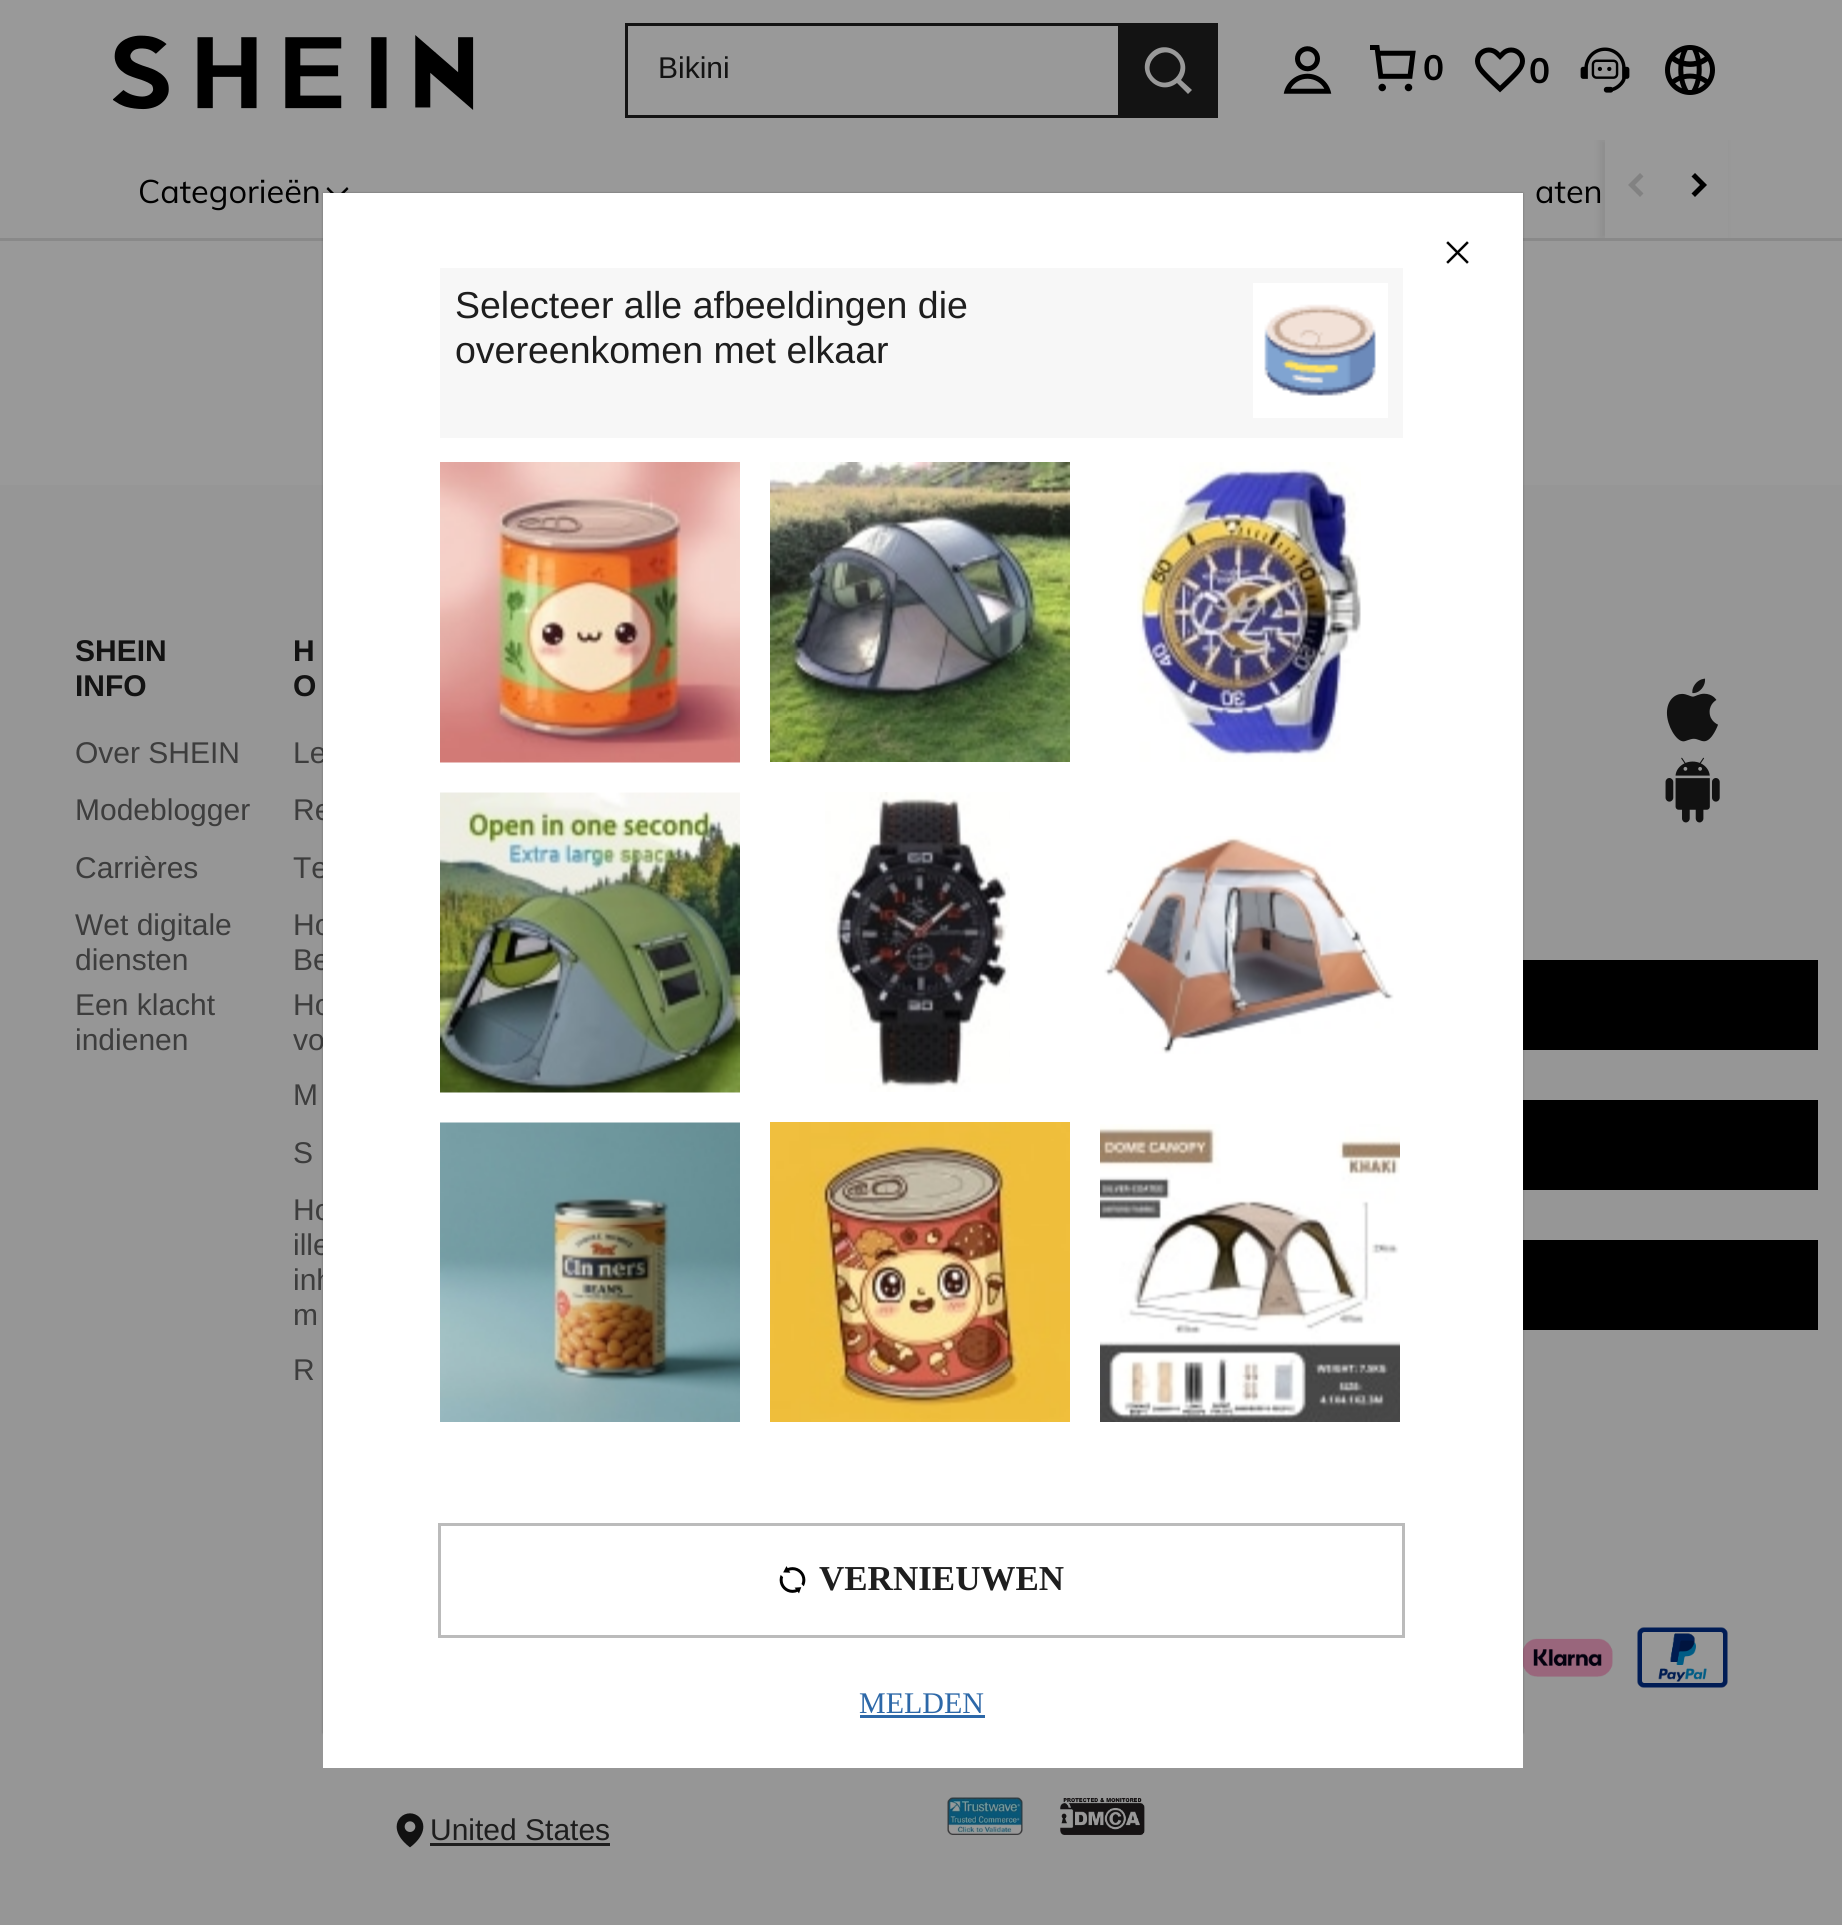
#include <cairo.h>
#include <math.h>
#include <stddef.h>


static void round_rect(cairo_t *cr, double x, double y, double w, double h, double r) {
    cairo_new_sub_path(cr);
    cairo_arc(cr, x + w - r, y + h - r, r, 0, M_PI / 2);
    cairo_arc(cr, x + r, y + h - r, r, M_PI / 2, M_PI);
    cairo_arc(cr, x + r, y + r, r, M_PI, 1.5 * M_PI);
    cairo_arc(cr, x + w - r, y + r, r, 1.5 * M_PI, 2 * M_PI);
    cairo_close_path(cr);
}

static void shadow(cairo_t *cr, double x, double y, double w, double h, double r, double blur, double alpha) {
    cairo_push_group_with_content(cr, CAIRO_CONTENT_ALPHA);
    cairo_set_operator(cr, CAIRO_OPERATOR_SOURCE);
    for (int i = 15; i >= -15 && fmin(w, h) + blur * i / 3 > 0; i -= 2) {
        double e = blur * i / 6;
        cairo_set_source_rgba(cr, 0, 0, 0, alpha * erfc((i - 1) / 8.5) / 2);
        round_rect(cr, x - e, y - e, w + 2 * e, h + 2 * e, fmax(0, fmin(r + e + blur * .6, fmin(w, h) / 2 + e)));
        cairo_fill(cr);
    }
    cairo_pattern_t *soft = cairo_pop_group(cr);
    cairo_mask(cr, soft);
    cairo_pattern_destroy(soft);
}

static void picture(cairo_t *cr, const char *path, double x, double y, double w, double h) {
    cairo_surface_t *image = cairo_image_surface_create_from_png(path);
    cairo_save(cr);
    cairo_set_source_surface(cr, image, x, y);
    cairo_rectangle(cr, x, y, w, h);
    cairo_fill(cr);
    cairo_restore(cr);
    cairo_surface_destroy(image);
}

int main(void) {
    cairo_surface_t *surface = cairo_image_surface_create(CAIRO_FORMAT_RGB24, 1842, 1925);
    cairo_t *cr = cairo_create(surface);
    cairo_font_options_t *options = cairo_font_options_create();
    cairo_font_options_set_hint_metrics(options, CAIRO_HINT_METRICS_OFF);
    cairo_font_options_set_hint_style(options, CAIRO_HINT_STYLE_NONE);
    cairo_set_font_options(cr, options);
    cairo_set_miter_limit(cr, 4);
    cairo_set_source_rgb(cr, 0.6, 0.6, 0.6);
    cairo_paint(cr);
    picture(cr, "img1.png", 113, 35, 361, 75);
    cairo_set_source_rgb(cr, 0.078, 0.078, 0.078);
    cairo_rectangle(cr, 625, 23, 493, 3);
    cairo_fill(cr);
    cairo_rectangle(cr, 625, 115, 493, 3);
    cairo_fill(cr);
    cairo_rectangle(cr, 625, 23, 3, 95);
    cairo_fill(cr);
    cairo_select_font_face(cr, "Liberation Sans", CAIRO_FONT_SLANT_NORMAL, CAIRO_FONT_WEIGHT_NORMAL);
    cairo_set_font_size(cr, 30);
    cairo_move_to(cr, 658, 78);
    cairo_show_text(cr, "Bikini");
    cairo_rectangle(cr, 1118, 23, 100, 95);
    cairo_fill(cr);
    cairo_set_source_rgb(cr, 0.6, 0.6, 0.6);
    cairo_set_fill_rule(cr, CAIRO_FILL_RULE_EVEN_ODD);
    cairo_new_path(cr);
    cairo_move_to(cr, 1151, 53);
    cairo_curve_to(cr, 1168, 36, 1196, 60, 1181, 80);
    cairo_line_to(cr, 1192, 90);
    cairo_line_to(cr, 1188, 94);
    cairo_line_to(cr, 1177, 83);
    cairo_curve_to(cr, 1158, 98, 1133, 71, 1151, 53);
    cairo_close_path(cr);
    cairo_move_to(cr, 1176, 57);
    cairo_curve_to(cr, 1162, 43, 1140, 64, 1154, 78);
    cairo_curve_to(cr, 1168, 92, 1190, 71, 1176, 57);
    cairo_close_path(cr);
    cairo_fill(cr);
    picture(cr, "img2.png", 1283, 46, 49, 48);
    picture(cr, "img3.png", 1370, 45, 46, 47);
    cairo_select_font_face(cr, "Muli", CAIRO_FONT_SLANT_NORMAL, CAIRO_FONT_WEIGHT_BOLD);
    cairo_set_font_size(cr, 35);
    cairo_set_source_rgb(cr, 0, 0, 0);
    cairo_move_to(cr, 1423, 80);
    cairo_show_text(cr, "0");
    picture(cr, "img4.png", 1475, 47, 50, 46);
    cairo_move_to(cr, 1529, 83);
    cairo_show_text(cr, "0");
    picture(cr, "img5.png", 1580, 47, 50, 46);
    picture(cr, "img6.png", 1665, 45, 50, 50);
    cairo_set_source_rgb(cr, 0.537, 0.537, 0.537);
    cairo_rectangle(cr, 0, 238, 1842, 3);
    cairo_fill(cr);
    cairo_select_font_face(cr, "Muli", CAIRO_FONT_SLANT_NORMAL, CAIRO_FONT_WEIGHT_NORMAL);
    cairo_set_font_size(cr, 32.5);
    cairo_set_source_rgb(cr, 0, 0, 0);
    cairo_move_to(cr, 138, 203);
    cairo_show_text(cr, "Categorieën");
    cairo_set_fill_rule(cr, CAIRO_FILL_RULE_WINDING);
    cairo_new_path(cr);
    cairo_move_to(cr, 347, 187);
    cairo_line_to(cr, 348.5, 189);
    cairo_line_to(cr, 337.5, 200);
    cairo_line_to(cr, 326.5, 189);
    cairo_line_to(cr, 328, 187);
    cairo_line_to(cr, 337.5, 196.5);
    cairo_close_path(cr);
    cairo_fill(cr);
    cairo_move_to(cr, 1535, 203);
    cairo_show_text(cr, "aten");
    cairo_save(cr);
    cairo_rectangle(cr, 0, 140, 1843, 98);
    cairo_clip(cr);
    cairo_set_source_rgb(cr, 0, 0, 0);
    shadow(cr, 1600, 140, 125, 98, 0, 4, 0.08);
    cairo_restore(cr);
    cairo_set_source_rgb(cr, 0.6, 0.6, 0.6);
    cairo_rectangle(cr, 1605, 140, 123, 98);
    cairo_fill(cr);
    cairo_set_source_rgb(cr, 0.51, 0.51, 0.51);
    cairo_set_fill_rule(cr, CAIRO_FILL_RULE_EVEN_ODD);
    cairo_new_path(cr);
    cairo_move_to(cr, 1640, 173);
    cairo_line_to(cr, 1643.5, 176.5);
    cairo_line_to(cr, 1635, 185);
    cairo_line_to(cr, 1643.5, 193.5);
    cairo_line_to(cr, 1640, 197);
    cairo_line_to(cr, 1628, 185);
    cairo_close_path(cr);
    cairo_fill(cr);
    cairo_set_source_rgb(cr, 0, 0, 0);
    cairo_new_path(cr);
    cairo_move_to(cr, 1691.5, 176.5);
    cairo_line_to(cr, 1695, 173);
    cairo_line_to(cr, 1707, 185);
    cairo_line_to(cr, 1695, 197);
    cairo_line_to(cr, 1691.5, 193.5);
    cairo_line_to(cr, 1700, 185);
    cairo_close_path(cr);
    cairo_fill(cr);
    cairo_set_source_rgb(cr, 0.588, 0.588, 0.588);
    cairo_rectangle(cr, 0, 485, 1842, 1440);
    cairo_fill(cr);
    cairo_select_font_face(cr, "Liberation Sans", CAIRO_FONT_SLANT_NORMAL, CAIRO_FONT_WEIGHT_BOLD);
    cairo_set_font_size(cr, 30);
    cairo_set_source_rgb(cr, 0.078, 0.078, 0.078);
    cairo_move_to(cr, 75, 661);
    cairo_show_text(cr, "SHEIN");
    cairo_move_to(cr, 75, 696);
    cairo_show_text(cr, "INFO");
    cairo_select_font_face(cr, "Liberation Sans", CAIRO_FONT_SLANT_NORMAL, CAIRO_FONT_WEIGHT_NORMAL);
    cairo_set_source_rgb(cr, 0.239, 0.239, 0.239);
    cairo_move_to(cr, 75, 763);
    cairo_show_text(cr, "Over SHEIN");
    cairo_move_to(cr, 75, 820);
    cairo_show_text(cr, "Modeblogger");
    cairo_move_to(cr, 75, 878);
    cairo_show_text(cr, "Carrières");
    cairo_move_to(cr, 75, 935);
    cairo_show_text(cr, "Wet digitale");
    cairo_move_to(cr, 75, 970);
    cairo_show_text(cr, "diensten");
    cairo_move_to(cr, 75, 1015);
    cairo_show_text(cr, "Een klacht");
    cairo_move_to(cr, 75, 1050);
    cairo_show_text(cr, "indienen");
    cairo_select_font_face(cr, "Liberation Sans", CAIRO_FONT_SLANT_NORMAL, CAIRO_FONT_WEIGHT_BOLD);
    cairo_set_source_rgb(cr, 0.078, 0.078, 0.078);
    cairo_move_to(cr, 293, 661);
    cairo_show_text(cr, "H");
    cairo_move_to(cr, 293, 696);
    cairo_show_text(cr, "O");
    cairo_select_font_face(cr, "Liberation Sans", CAIRO_FONT_SLANT_NORMAL, CAIRO_FONT_WEIGHT_NORMAL);
    cairo_set_source_rgb(cr, 0.239, 0.239, 0.239);
    cairo_move_to(cr, 293, 763);
    cairo_show_text(cr, "Le");
    cairo_move_to(cr, 293, 820);
    cairo_show_text(cr, "Re");
    cairo_move_to(cr, 293, 878);
    cairo_show_text(cr, "Te");
    cairo_move_to(cr, 293, 935);
    cairo_show_text(cr, "Ho");
    cairo_move_to(cr, 293, 970);
    cairo_show_text(cr, "Be");
    cairo_move_to(cr, 293, 1015);
    cairo_show_text(cr, "Ho");
    cairo_move_to(cr, 293, 1050);
    cairo_show_text(cr, "vo");
    cairo_move_to(cr, 293, 1105);
    cairo_show_text(cr, "M");
    cairo_move_to(cr, 293, 1163);
    cairo_show_text(cr, "S");
    cairo_move_to(cr, 293, 1220);
    cairo_show_text(cr, "Ho");
    cairo_move_to(cr, 293, 1255);
    cairo_show_text(cr, "ille");
    cairo_move_to(cr, 293, 1290);
    cairo_show_text(cr, "inh");
    cairo_move_to(cr, 293, 1325);
    cairo_show_text(cr, "m");
    cairo_move_to(cr, 293, 1380);
    cairo_show_text(cr, "R");
    picture(cr, "img7.png", 1666, 678, 52, 64);
    picture(cr, "img8.png", 1665, 757, 55, 66);
    cairo_set_source_rgb(cr, 0, 0, 0);
    cairo_rectangle(cr, 1523, 960, 295, 90);
    cairo_fill(cr);
    cairo_rectangle(cr, 1523, 1100, 295, 90);
    cairo_fill(cr);
    cairo_rectangle(cr, 1523, 1240, 295, 90);
    cairo_fill(cr);
    picture(cr, "img9.png", 1523, 1638, 90, 39);
    picture(cr, "img10.png", 1637, 1627, 91, 61);
    picture(cr, "img11.png", 396, 1813, 28, 35);
    cairo_set_source_rgb(cr, 0.118, 0.118, 0.118);
    cairo_move_to(cr, 430, 1840);
    cairo_show_text(cr, "United States");
    cairo_rectangle(cr, 430, 1843, 180, 3);
    cairo_fill(cr);
    picture(cr, "img12.png", 947, 1797, 76, 38);
    picture(cr, "img13.png", 1060, 1798, 85, 37);
    cairo_set_source_rgb(cr, 0, 0, 0);
    shadow(cr, 323, 193, 1200, 1540, 0, 1, 0.3);
    cairo_set_source_rgb(cr, 1, 1, 1);
    cairo_rectangle(cr, 323, 193, 1200, 1575);
    cairo_fill(cr);
    picture(cr, "img14.png", 1446, 241, 23, 23);
    cairo_set_source_rgb(cr, 0.965, 0.965, 0.965);
    cairo_rectangle(cr, 440, 268, 963, 170);
    cairo_fill(cr);
    cairo_set_font_size(cr, 37.5);
    cairo_set_source_rgb(cr, 0.118, 0.118, 0.118);
    cairo_move_to(cr, 455, 318);
    cairo_show_text(cr, "Selecteer alle afbeeldingen die");
    cairo_move_to(cr, 455, 363);
    cairo_show_text(cr, "overeenkomen met elkaar");
    cairo_set_source_rgb(cr, 1, 1, 1);
    cairo_rectangle(cr, 1253, 283, 135, 135);
    cairo_fill(cr);
    picture(cr, "img15.png", 1264, 304, 112, 92);
    picture(cr, "img16.png", 440, 462, 300, 301);
    picture(cr, "img17.png", 770, 462, 300, 300);
    picture(cr, "img18.png", 1137, 462, 224, 300);
    picture(cr, "img19.png", 440, 792, 300, 301);
    picture(cr, "img20.png", 825, 792, 185, 300);
    picture(cr, "img21.png", 1104, 836, 290, 218);
    picture(cr, "img22.png", 440, 1122, 300, 300);
    picture(cr, "img23.png", 770, 1122, 300, 300);
    picture(cr, "img24.png", 1100, 1124, 300, 298);
    cairo_rectangle(cr, 439.5, 1524.5, 964, 112);
    cairo_set_source_rgb(cr, 0.733, 0.733, 0.733);
    cairo_set_line_width(cr, 3);
    cairo_stroke(cr);
    picture(cr, "img25.png", 779, 1566, 27, 28);
    cairo_select_font_face(cr, "Liberation Serif", CAIRO_FONT_SLANT_NORMAL, CAIRO_FONT_WEIGHT_BOLD);
    cairo_set_font_size(cr, 35);
    cairo_set_source_rgb(cr, 0.118, 0.118, 0.118);
    cairo_move_to(cr, 819, 1590);
    cairo_show_text(cr, "VERNIEUWEN");
    cairo_select_font_face(cr, "Liberation Serif", CAIRO_FONT_SLANT_NORMAL, CAIRO_FONT_WEIGHT_NORMAL);
    cairo_set_font_size(cr, 30);
    cairo_set_source_rgb(cr, 0.176, 0.408, 0.659);
    cairo_move_to(cr, 859, 1713);
    cairo_show_text(cr, "MELDEN");
    cairo_rectangle(cr, 860, 1715, 125, 3);
    cairo_fill(cr);
    cairo_surface_write_to_png(surface, "page.png");
    cairo_font_options_destroy(options);
    cairo_destroy(cr);
    cairo_surface_destroy(surface);
    return 0;
}
